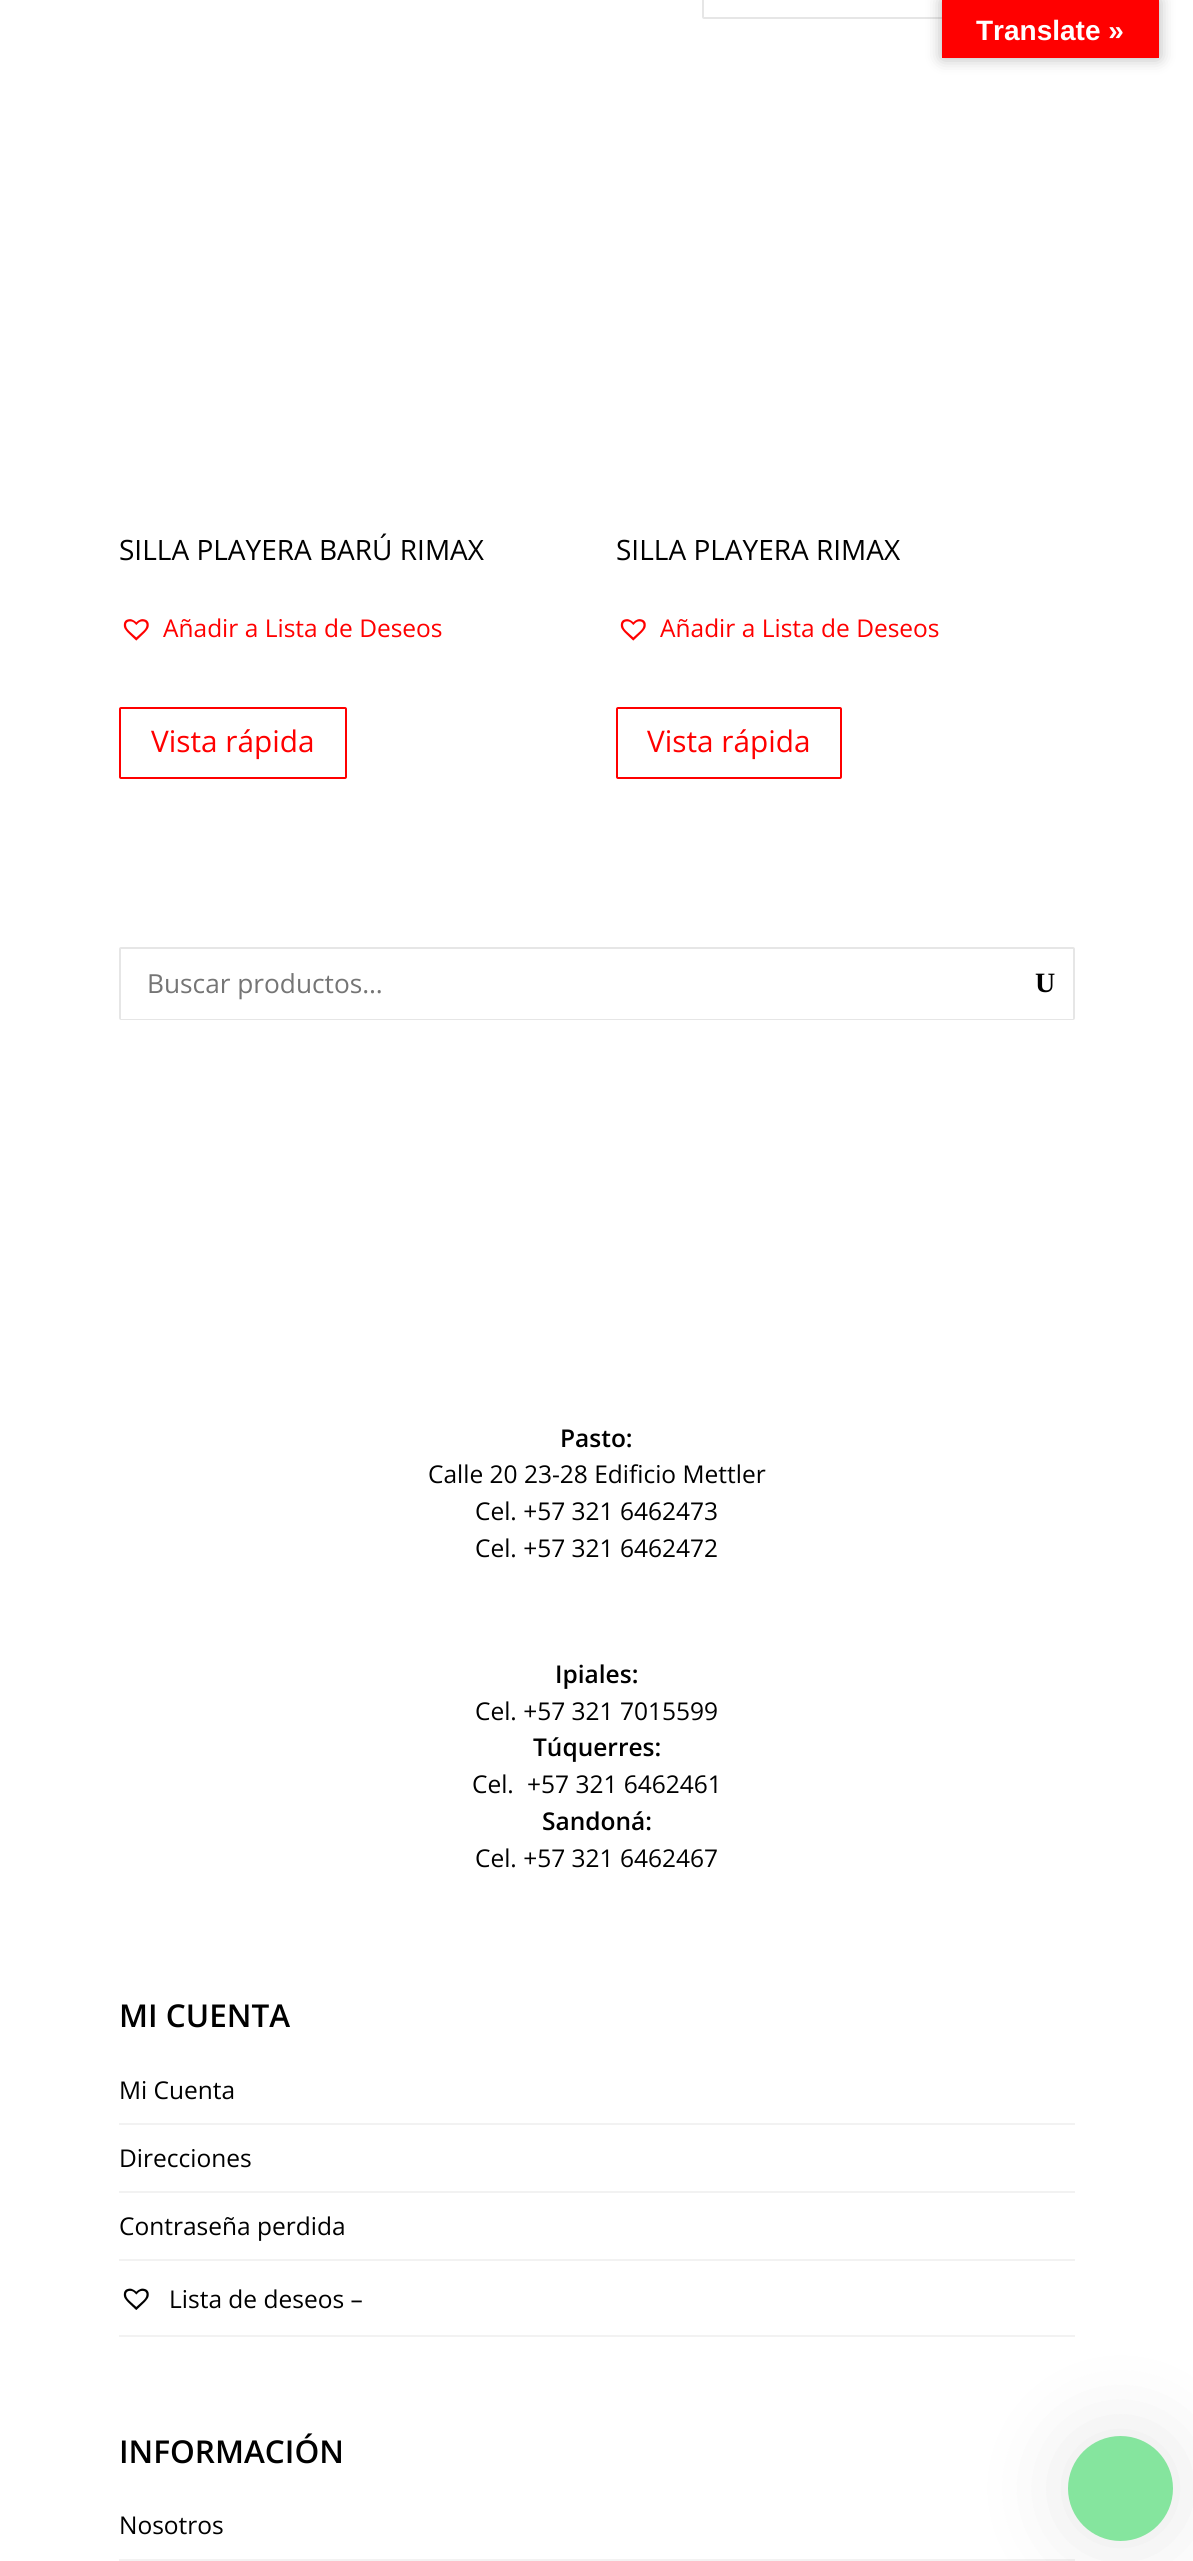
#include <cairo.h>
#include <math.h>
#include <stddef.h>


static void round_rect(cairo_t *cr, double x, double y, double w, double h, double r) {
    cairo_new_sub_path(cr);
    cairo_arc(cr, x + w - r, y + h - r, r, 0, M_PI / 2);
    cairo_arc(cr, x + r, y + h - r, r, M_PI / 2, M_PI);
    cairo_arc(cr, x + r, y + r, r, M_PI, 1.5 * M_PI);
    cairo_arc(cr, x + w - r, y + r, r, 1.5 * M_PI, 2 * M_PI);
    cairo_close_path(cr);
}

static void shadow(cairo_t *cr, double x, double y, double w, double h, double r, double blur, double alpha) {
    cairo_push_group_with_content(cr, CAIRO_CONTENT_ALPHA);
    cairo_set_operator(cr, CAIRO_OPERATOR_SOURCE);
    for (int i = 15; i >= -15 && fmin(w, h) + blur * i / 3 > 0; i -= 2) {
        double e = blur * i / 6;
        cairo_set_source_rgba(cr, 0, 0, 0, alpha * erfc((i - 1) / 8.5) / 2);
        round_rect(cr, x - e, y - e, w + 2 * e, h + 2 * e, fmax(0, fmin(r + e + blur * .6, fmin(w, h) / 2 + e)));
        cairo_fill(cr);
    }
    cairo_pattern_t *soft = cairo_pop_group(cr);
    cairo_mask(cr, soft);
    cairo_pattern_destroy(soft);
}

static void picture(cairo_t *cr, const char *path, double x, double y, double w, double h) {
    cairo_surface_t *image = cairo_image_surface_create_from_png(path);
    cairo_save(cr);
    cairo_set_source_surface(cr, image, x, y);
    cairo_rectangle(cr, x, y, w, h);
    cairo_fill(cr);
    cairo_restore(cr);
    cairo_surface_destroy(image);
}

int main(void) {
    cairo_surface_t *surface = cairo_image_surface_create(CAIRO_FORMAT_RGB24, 1193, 2561);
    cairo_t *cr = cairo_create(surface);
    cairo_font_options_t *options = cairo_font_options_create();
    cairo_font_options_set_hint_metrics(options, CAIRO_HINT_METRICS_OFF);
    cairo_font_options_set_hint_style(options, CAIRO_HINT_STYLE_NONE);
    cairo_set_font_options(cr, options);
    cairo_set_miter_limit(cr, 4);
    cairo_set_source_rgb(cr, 1, 1, 1);
    cairo_paint(cr);
    round_rect(cr, 703, -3, 371, 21, 1);
    cairo_set_source_rgb(cr, 0.902, 0.902, 0.902);
    cairo_stroke(cr);
    cairo_set_source_rgb(cr, 0, 0, 0);
    shadow(cr, 942, 0, 217, 58, 0, 8, 0.3);
    cairo_set_source_rgb(cr, 1, 0, 0);
    cairo_rectangle(cr, 942, 0, 217, 58);
    cairo_fill(cr);
    cairo_select_font_face(cr, "Liberation Sans", CAIRO_FONT_SLANT_NORMAL, CAIRO_FONT_WEIGHT_BOLD);
    cairo_set_font_size(cr, 28);
    cairo_set_source_rgb(cr, 1, 1, 1);
    cairo_move_to(cr, 976, 40);
    cairo_show_text(cr, "Translate »");
    cairo_select_font_face(cr, "Open Sans", CAIRO_FONT_SLANT_NORMAL, CAIRO_FONT_WEIGHT_NORMAL);
    cairo_set_source_rgb(cr, 0, 0, 0);
    cairo_move_to(cr, 119, 560);
    cairo_show_text(cr, "SILLA PLAYERA BARÚ RIMAX");
    picture(cr, "img1.png", 123, 619, 26, 22);
    cairo_set_font_size(cr, 24.5);
    cairo_set_source_rgb(cr, 1, 0, 0);
    cairo_move_to(cr, 163, 637);
    cairo_show_text(cr, "Añadir a Lista de Deseos");
    round_rect(cr, 120, 708, 226, 70, 1);
    cairo_stroke(cr);
    cairo_set_font_size(cr, 29.75);
    cairo_move_to(cr, 151, 752);
    cairo_show_text(cr, "Vista rápida");
    cairo_set_font_size(cr, 28);
    cairo_set_source_rgb(cr, 0, 0, 0);
    cairo_move_to(cr, 616, 560);
    cairo_show_text(cr, "SILLA PLAYERA RIMAX");
    picture(cr, "img1.png", 620, 619, 26, 22);
    cairo_set_font_size(cr, 24.5);
    cairo_set_source_rgb(cr, 1, 0, 0);
    cairo_move_to(cr, 660, 637);
    cairo_show_text(cr, "Añadir a Lista de Deseos");
    round_rect(cr, 617, 708, 224, 70, 1);
    cairo_stroke(cr);
    cairo_set_font_size(cr, 29.75);
    cairo_move_to(cr, 647, 752);
    cairo_show_text(cr, "Vista rápida");
    round_rect(cr, 120, 948, 954, 71, 1);
    cairo_set_source_rgb(cr, 0.902, 0.902, 0.902);
    cairo_stroke(cr);
    cairo_set_source_rgb(cr, 1, 1, 1);
    cairo_rectangle(cr, 121, 1018, 952, 1);
    cairo_fill(cr);
    cairo_set_font_size(cr, 26.25);
    cairo_set_source_rgb(cr, 0.459, 0.459, 0.459);
    cairo_move_to(cr, 147, 993);
    cairo_show_text(cr, "Buscar productos…");
    cairo_select_font_face(cr, "Liberation Serif", CAIRO_FONT_SLANT_NORMAL, CAIRO_FONT_WEIGHT_BOLD);
    cairo_set_font_size(cr, 28);
    cairo_set_source_rgb(cr, 0, 0, 0);
    cairo_move_to(cr, 1035, 992);
    cairo_show_text(cr, "U");
    cairo_select_font_face(cr, "Open Sans SemiBold", CAIRO_FONT_SLANT_NORMAL, CAIRO_FONT_WEIGHT_NORMAL);
    cairo_set_font_size(cr, 24.5);
    cairo_move_to(cr, 560, 1447);
    cairo_show_text(cr, "Pasto:");
    cairo_select_font_face(cr, "Open Sans", CAIRO_FONT_SLANT_NORMAL, CAIRO_FONT_WEIGHT_NORMAL);
    cairo_move_to(cr, 428, 1483);
    cairo_show_text(cr, "Calle 20 23-28 Edificio Mettler");
    cairo_move_to(cr, 475, 1520);
    cairo_show_text(cr, "Cel. +57 321 6462473");
    cairo_move_to(cr, 475, 1557);
    cairo_show_text(cr, "Cel. +57 321 6462472");
    cairo_select_font_face(cr, "Open Sans SemiBold", CAIRO_FONT_SLANT_NORMAL, CAIRO_FONT_WEIGHT_NORMAL);
    cairo_move_to(cr, 555, 1683);
    cairo_show_text(cr, "Ipiales:");
    cairo_select_font_face(cr, "Open Sans", CAIRO_FONT_SLANT_NORMAL, CAIRO_FONT_WEIGHT_NORMAL);
    cairo_move_to(cr, 475, 1720);
    cairo_show_text(cr, "Cel. +57 321 7015599");
    cairo_select_font_face(cr, "Open Sans SemiBold", CAIRO_FONT_SLANT_NORMAL, CAIRO_FONT_WEIGHT_NORMAL);
    cairo_move_to(cr, 533, 1756);
    cairo_show_text(cr, "Túquerres:");
    cairo_select_font_face(cr, "Open Sans", CAIRO_FONT_SLANT_NORMAL, CAIRO_FONT_WEIGHT_NORMAL);
    cairo_move_to(cr, 472, 1793);
    cairo_show_text(cr, "Cel.");
    cairo_move_to(cr, 527, 1793);
    cairo_show_text(cr, "+57 321 6462461");
    cairo_select_font_face(cr, "Open Sans SemiBold", CAIRO_FONT_SLANT_NORMAL, CAIRO_FONT_WEIGHT_NORMAL);
    cairo_move_to(cr, 542, 1830);
    cairo_show_text(cr, "Sandoná:");
    cairo_select_font_face(cr, "Open Sans", CAIRO_FONT_SLANT_NORMAL, CAIRO_FONT_WEIGHT_NORMAL);
    cairo_move_to(cr, 475, 1867);
    cairo_show_text(cr, "Cel. +57 321 6462467");
    cairo_select_font_face(cr, "Open Sans SemiBold", CAIRO_FONT_SLANT_NORMAL, CAIRO_FONT_WEIGHT_NORMAL);
    cairo_set_font_size(cr, 31.5);
    cairo_move_to(cr, 119, 2027);
    cairo_show_text(cr, "MI CUENTA");
    cairo_set_source_rgb(cr, 0.949, 0.949, 0.949);
    cairo_rectangle(cr, 119, 2123, 956, 2);
    cairo_fill(cr);
    cairo_select_font_face(cr, "Open Sans", CAIRO_FONT_SLANT_NORMAL, CAIRO_FONT_WEIGHT_NORMAL);
    cairo_set_font_size(cr, 24.5);
    cairo_set_source_rgb(cr, 0, 0, 0);
    cairo_move_to(cr, 119, 2099);
    cairo_show_text(cr, "Mi Cuenta");
    cairo_set_source_rgb(cr, 0.949, 0.949, 0.949);
    cairo_rectangle(cr, 119, 2191, 956, 2);
    cairo_fill(cr);
    cairo_set_source_rgb(cr, 0, 0, 0);
    cairo_move_to(cr, 119, 2167);
    cairo_show_text(cr, "Direcciones");
    cairo_set_source_rgb(cr, 0.949, 0.949, 0.949);
    cairo_rectangle(cr, 119, 2259, 956, 2);
    cairo_fill(cr);
    cairo_set_source_rgb(cr, 0, 0, 0);
    cairo_move_to(cr, 119, 2235);
    cairo_show_text(cr, "Contraseña perdida");
    cairo_set_source_rgb(cr, 0.949, 0.949, 0.949);
    cairo_rectangle(cr, 119, 2335, 956, 2);
    cairo_fill(cr);
    picture(cr, "img2.png", 123, 2288, 26, 22);
    cairo_set_source_rgb(cr, 0, 0, 0);
    cairo_move_to(cr, 169, 2308);
    cairo_show_text(cr, "Lista de deseos –");
    cairo_select_font_face(cr, "Open Sans SemiBold", CAIRO_FONT_SLANT_NORMAL, CAIRO_FONT_WEIGHT_NORMAL);
    cairo_set_font_size(cr, 31.5);
    cairo_move_to(cr, 119, 2463);
    cairo_show_text(cr, "INFORMACIÓN");
    cairo_set_source_rgb(cr, 0.949, 0.949, 0.949);
    cairo_rectangle(cr, 119, 2559, 956, 2);
    cairo_fill(cr);
    cairo_select_font_face(cr, "Open Sans", CAIRO_FONT_SLANT_NORMAL, CAIRO_FONT_WEIGHT_NORMAL);
    cairo_set_font_size(cr, 24.5);
    cairo_set_source_rgb(cr, 0, 0, 0);
    cairo_move_to(cr, 119, 2534);
    cairo_show_text(cr, "Nosotros");
    cairo_set_source_rgb(cr, 0, 0, 0);
    shadow(cr, 1068, 2436, 105, 105, 52.5, 44, 0.1);
    cairo_set_source_rgb(cr, 0.522, 0.898, 0.62);
    cairo_arc(cr, 1120.5, 2488.5, 52.5, 0, 2 * M_PI);
    cairo_fill(cr);
    cairo_surface_write_to_png(surface, "page.png");
    cairo_font_options_destroy(options);
    cairo_destroy(cr);
    cairo_surface_destroy(surface);
    return 0;
}
